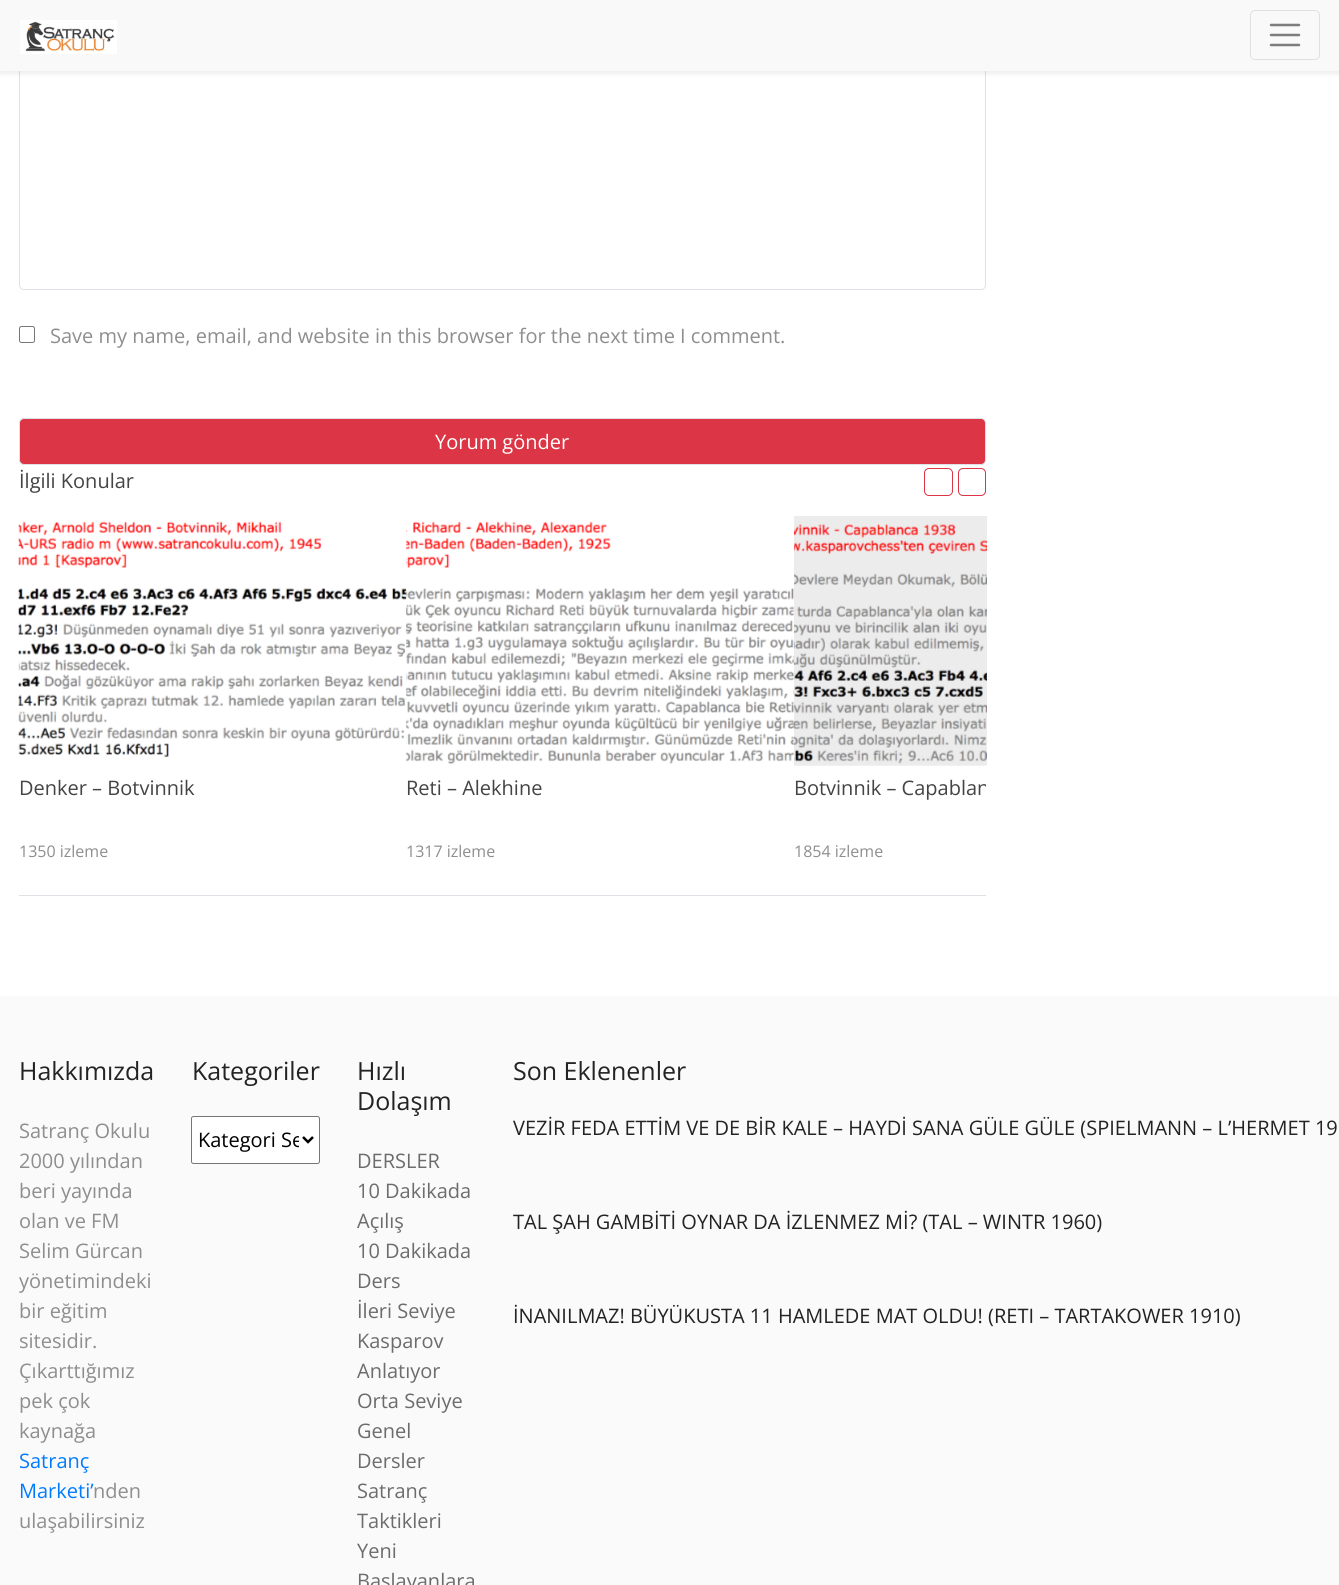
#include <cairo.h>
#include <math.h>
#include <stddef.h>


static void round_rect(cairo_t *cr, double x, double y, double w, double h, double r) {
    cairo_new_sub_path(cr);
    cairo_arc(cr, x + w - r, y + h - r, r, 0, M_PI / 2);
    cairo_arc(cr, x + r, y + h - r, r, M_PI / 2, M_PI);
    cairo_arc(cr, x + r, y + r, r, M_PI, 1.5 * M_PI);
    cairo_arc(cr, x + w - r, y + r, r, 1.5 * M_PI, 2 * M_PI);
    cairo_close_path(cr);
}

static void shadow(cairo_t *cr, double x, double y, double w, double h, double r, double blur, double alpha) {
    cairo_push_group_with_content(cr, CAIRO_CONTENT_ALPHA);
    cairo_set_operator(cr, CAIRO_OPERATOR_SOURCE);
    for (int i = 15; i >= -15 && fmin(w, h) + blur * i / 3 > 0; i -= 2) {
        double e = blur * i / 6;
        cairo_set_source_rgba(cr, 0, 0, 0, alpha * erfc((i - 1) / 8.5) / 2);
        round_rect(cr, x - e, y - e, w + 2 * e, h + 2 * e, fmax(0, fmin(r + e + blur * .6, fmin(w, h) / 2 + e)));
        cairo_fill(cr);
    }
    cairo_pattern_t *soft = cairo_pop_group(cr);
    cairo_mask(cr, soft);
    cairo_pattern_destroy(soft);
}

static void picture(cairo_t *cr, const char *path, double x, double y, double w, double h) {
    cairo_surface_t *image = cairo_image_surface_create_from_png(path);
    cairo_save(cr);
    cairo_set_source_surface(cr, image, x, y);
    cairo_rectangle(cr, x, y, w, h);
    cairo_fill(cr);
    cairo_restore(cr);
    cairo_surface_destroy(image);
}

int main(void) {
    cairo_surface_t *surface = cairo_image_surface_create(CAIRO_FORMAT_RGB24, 1339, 1585);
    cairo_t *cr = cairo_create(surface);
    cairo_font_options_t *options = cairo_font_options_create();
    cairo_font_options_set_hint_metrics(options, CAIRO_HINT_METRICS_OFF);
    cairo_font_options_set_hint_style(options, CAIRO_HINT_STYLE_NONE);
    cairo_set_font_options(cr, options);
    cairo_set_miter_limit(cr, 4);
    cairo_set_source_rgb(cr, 1, 1, 1);
    cairo_paint(cr);
    round_rect(cr, 19.5, 8.5, 966, 281, 4.5);
    cairo_set_source_rgb(cr, 0.871, 0.886, 0.902);
    cairo_set_line_width(cr, 1);
    cairo_stroke(cr);
    cairo_set_source_rgb(cr, 0, 0, 0);
    shadow(cr, 0, 3, 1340, 71, 0, 2.5, 0.07);
    cairo_set_source_rgb(cr, 0.973, 0.976, 0.98);
    cairo_rectangle(cr, 0, 0, 1339, 71);
    cairo_fill(cr);
    picture(cr, "img1.png", 20, 20, 97, 34);
    round_rect(cr, 1250.5, 10.5, 69, 49, 4.5);
    cairo_set_source_rgb(cr, 0.875, 0.878, 0.882);
    cairo_stroke(cr);
    cairo_new_path(cr);
    cairo_move_to(cr, 1271, 25);
    cairo_line_to(cr, 1299, 25);
    cairo_move_to(cr, 1271, 35);
    cairo_line_to(cr, 1299, 35);
    cairo_move_to(cr, 1271, 45);
    cairo_line_to(cr, 1299, 45);
    cairo_set_source_rgb(cr, 0.486, 0.49, 0.49);
    cairo_set_line_width(cr, 2.5);
    cairo_set_line_cap(cr, CAIRO_LINE_CAP_ROUND);
    cairo_stroke(cr);
    round_rect(cr, 19.5, 326.5, 15, 16, 2);
    cairo_set_source_rgb(cr, 0.463, 0.463, 0.463);
    cairo_set_line_width(cr, 1);
    cairo_set_line_cap(cr, CAIRO_LINE_CAP_BUTT);
    cairo_stroke(cr);
    cairo_select_font_face(cr, "Open Sans", CAIRO_FONT_SLANT_NORMAL, CAIRO_FONT_WEIGHT_NORMAL);
    cairo_set_font_size(cr, 20);
    cairo_set_source_rgb(cr, 0.557, 0.557, 0.557);
    cairo_move_to(cr, 50, 343);
    cairo_show_text(cr, "Save my name, email, and website in this browser for the next time I comment.");
    cairo_set_source_rgb(cr, 0.863, 0.208, 0.271);
    round_rect(cr, 19.5, 418.5, 966, 46, 4.5);
    cairo_fill_preserve(cr);
    cairo_set_source_rgb(cr, 0.871, 0.886, 0.902);
    cairo_stroke(cr);
    cairo_set_source_rgb(cr, 1, 1, 1);
    cairo_move_to(cr, 435, 449);
    cairo_show_text(cr, "Yorum gönder");
    cairo_set_source_rgb(cr, 0.267, 0.267, 0.267);
    cairo_move_to(cr, 19, 488);
    cairo_show_text(cr, "İlgili Konular");
    round_rect(cr, 924.5, 468.5, 28, 27, 4.5);
    cairo_set_source_rgb(cr, 0.863, 0.208, 0.271);
    cairo_stroke(cr);
    round_rect(cr, 958.5, 468.5, 27, 27, 4.5);
    cairo_stroke(cr);
    cairo_set_source_rgb(cr, 0.871, 0.886, 0.902);
    cairo_rectangle(cr, 19, 895, 967, 1);
    cairo_fill(cr);
    picture(cr, "img2.png", 18, 521, 389, 237);
    cairo_set_source_rgb(cr, 0.267, 0.267, 0.267);
    cairo_move_to(cr, 19, 795);
    cairo_show_text(cr, "Denker – Botvinnik");
    cairo_set_font_size(cr, 16);
    cairo_set_source_rgb(cr, 0.557, 0.557, 0.557);
    cairo_move_to(cr, 19, 857);
    cairo_show_text(cr, "1350 izleme");
    picture(cr, "img3.png", 406, 521, 388, 243);
    cairo_set_font_size(cr, 20);
    cairo_set_source_rgb(cr, 0.267, 0.267, 0.267);
    cairo_move_to(cr, 406, 795);
    cairo_show_text(cr, "Reti – Alekhine");
    cairo_set_font_size(cr, 16);
    cairo_set_source_rgb(cr, 0.557, 0.557, 0.557);
    cairo_move_to(cr, 406, 857);
    cairo_show_text(cr, "1317 izleme");
    picture(cr, "img4.png", 794, 516, 193, 250);
    cairo_save(cr);
    cairo_rectangle(cr, 794, 776, 192, 24);
    cairo_clip(cr);
    cairo_set_font_size(cr, 20);
    cairo_set_source_rgb(cr, 0.267, 0.267, 0.267);
    cairo_move_to(cr, 794, 795);
    cairo_show_text(cr, "Botvinnik – Capablan");
    cairo_restore(cr);
    cairo_move_to(cr, 794, 857);
    cairo_show_text(cr, "1854 izleme");
    cairo_set_source_rgb(cr, 0.98, 0.98, 0.98);
    cairo_rectangle(cr, 0, 996, 1339, 589);
    cairo_fill(cr);
    cairo_set_font_size(cr, 25);
    cairo_set_source_rgb(cr, 0.137, 0.137, 0.137);
    cairo_move_to(cr, 19, 1080);
    cairo_show_text(cr, "Hakkımızda");
    cairo_set_font_size(cr, 20);
    cairo_set_source_rgb(cr, 0.557, 0.557, 0.557);
    cairo_move_to(cr, 19, 1138);
    cairo_show_text(cr, "Satranç Okulu");
    cairo_move_to(cr, 19, 1168);
    cairo_show_text(cr, "2000 yılından");
    cairo_move_to(cr, 19, 1198);
    cairo_show_text(cr, "beri yayında");
    cairo_move_to(cr, 19, 1228);
    cairo_show_text(cr, "olan ve FM");
    cairo_move_to(cr, 19, 1258);
    cairo_show_text(cr, "Selim Gürcan");
    cairo_move_to(cr, 19, 1288);
    cairo_show_text(cr, "yönetimindeki");
    cairo_move_to(cr, 19, 1318);
    cairo_show_text(cr, "bir eğitim");
    cairo_move_to(cr, 19, 1348);
    cairo_show_text(cr, "sitesidir.");
    cairo_move_to(cr, 19, 1378);
    cairo_show_text(cr, "Çıkarttığımız");
    cairo_move_to(cr, 19, 1408);
    cairo_show_text(cr, "pek çok");
    cairo_move_to(cr, 19, 1438);
    cairo_show_text(cr, "kaynağa");
    cairo_set_source_rgb(cr, 0, 0.482, 1);
    cairo_move_to(cr, 19, 1468);
    cairo_show_text(cr, "Satranç");
    cairo_move_to(cr, 19, 1498);
    cairo_show_text(cr, "Marketi’");
    cairo_set_source_rgb(cr, 0.557, 0.557, 0.557);
    cairo_move_to(cr, 93, 1498);
    cairo_show_text(cr, "nden");
    cairo_move_to(cr, 19, 1528);
    cairo_show_text(cr, "ulaşabilirsiniz");
    cairo_set_font_size(cr, 25);
    cairo_set_source_rgb(cr, 0.137, 0.137, 0.137);
    cairo_move_to(cr, 192, 1080);
    cairo_show_text(cr, "Kategoriler");
    cairo_set_source_rgb(cr, 1, 1, 1);
    round_rect(cr, 191.5, 1116.5, 128, 47, 2);
    cairo_fill_preserve(cr);
    cairo_set_source_rgb(cr, 0.463, 0.463, 0.463);
    cairo_stroke(cr);
    cairo_new_path(cr);
    cairo_move_to(cr, 303, 1137);
    cairo_line_to(cr, 308, 1142);
    cairo_line_to(cr, 313, 1137);
    cairo_set_source_rgb(cr, 0, 0, 0);
    cairo_set_line_width(cr, 2.5);
    cairo_stroke(cr);
    cairo_save(cr);
    cairo_rectangle(cr, 198, 1125, 101, 30);
    cairo_clip(cr);
    cairo_set_font_size(cr, 20);
    cairo_move_to(cr, 198, 1147);
    cairo_show_text(cr, "Kategori Se");
    cairo_restore(cr);
    cairo_set_source_rgb(cr, 0.137, 0.137, 0.137);
    cairo_move_to(cr, 357, 1080);
    cairo_show_text(cr, "Hızlı");
    cairo_move_to(cr, 357, 1110);
    cairo_show_text(cr, "Dolaşım");
    cairo_set_font_size(cr, 20);
    cairo_set_source_rgb(cr, 0.424, 0.424, 0.424);
    cairo_move_to(cr, 357, 1168);
    cairo_show_text(cr, "DERSLER");
    cairo_move_to(cr, 357, 1198);
    cairo_show_text(cr, "10 Dakikada");
    cairo_move_to(cr, 357, 1228);
    cairo_show_text(cr, "Açılış");
    cairo_move_to(cr, 357, 1258);
    cairo_show_text(cr, "10 Dakikada");
    cairo_move_to(cr, 357, 1288);
    cairo_show_text(cr, "Ders");
    cairo_move_to(cr, 357, 1318);
    cairo_show_text(cr, "İleri Seviye");
    cairo_move_to(cr, 357, 1348);
    cairo_show_text(cr, "Kasparov");
    cairo_move_to(cr, 357, 1378);
    cairo_show_text(cr, "Anlatıyor");
    cairo_move_to(cr, 357, 1408);
    cairo_show_text(cr, "Orta Seviye");
    cairo_move_to(cr, 357, 1438);
    cairo_show_text(cr, "Genel");
    cairo_move_to(cr, 357, 1468);
    cairo_show_text(cr, "Dersler");
    cairo_move_to(cr, 357, 1498);
    cairo_show_text(cr, "Satranç");
    cairo_move_to(cr, 357, 1528);
    cairo_show_text(cr, "Taktikleri");
    cairo_move_to(cr, 357, 1558);
    cairo_show_text(cr, "Yeni");
    cairo_move_to(cr, 357, 1588);
    cairo_show_text(cr, "Başlayanlara");
    cairo_set_font_size(cr, 25);
    cairo_set_source_rgb(cr, 0.137, 0.137, 0.137);
    cairo_move_to(cr, 513, 1080);
    cairo_show_text(cr, "Son Eklenenler");
    cairo_set_font_size(cr, 20);
    cairo_move_to(cr, 513, 1135);
    cairo_show_text(cr, "VEZİR FEDA ETTİM VE DE BİR KALE – HAYDİ SANA GÜLE GÜLE (SPIELMANN – L’HERMET 19");
    cairo_move_to(cr, 513, 1229);
    cairo_show_text(cr, "TAL ŞAH GAMBİTİ OYNAR DA İZLENMEZ Mİ? (TAL – WINTR 1960)");
    cairo_move_to(cr, 513, 1323);
    cairo_show_text(cr, "İNANILMAZ! BÜYÜKUSTA 11 HAMLEDE MAT OLDU! (RETI – TARTAKOWER 1910)");
    cairo_surface_write_to_png(surface, "page.png");
    cairo_font_options_destroy(options);
    cairo_destroy(cr);
    cairo_surface_destroy(surface);
    return 0;
}
